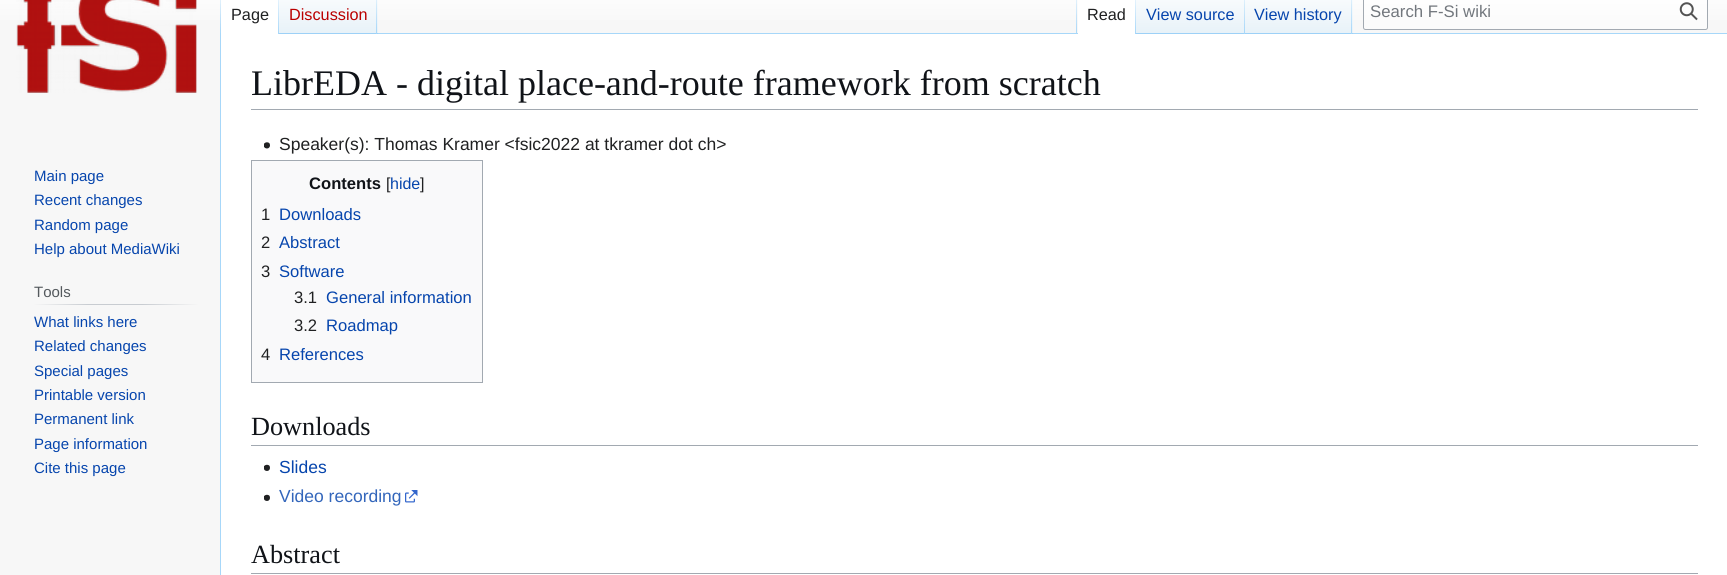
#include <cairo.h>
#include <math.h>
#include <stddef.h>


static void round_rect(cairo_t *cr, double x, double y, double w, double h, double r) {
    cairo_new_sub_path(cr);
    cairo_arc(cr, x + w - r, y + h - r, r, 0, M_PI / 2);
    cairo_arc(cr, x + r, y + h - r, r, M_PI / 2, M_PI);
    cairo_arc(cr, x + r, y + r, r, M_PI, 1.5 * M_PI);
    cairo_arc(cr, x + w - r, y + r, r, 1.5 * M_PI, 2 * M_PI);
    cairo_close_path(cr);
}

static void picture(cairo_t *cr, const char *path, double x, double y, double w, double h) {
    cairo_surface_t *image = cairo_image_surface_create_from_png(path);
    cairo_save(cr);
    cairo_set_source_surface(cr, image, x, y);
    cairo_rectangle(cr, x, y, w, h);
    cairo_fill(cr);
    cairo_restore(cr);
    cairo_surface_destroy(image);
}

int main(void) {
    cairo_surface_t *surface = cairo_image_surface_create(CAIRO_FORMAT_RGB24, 1727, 575);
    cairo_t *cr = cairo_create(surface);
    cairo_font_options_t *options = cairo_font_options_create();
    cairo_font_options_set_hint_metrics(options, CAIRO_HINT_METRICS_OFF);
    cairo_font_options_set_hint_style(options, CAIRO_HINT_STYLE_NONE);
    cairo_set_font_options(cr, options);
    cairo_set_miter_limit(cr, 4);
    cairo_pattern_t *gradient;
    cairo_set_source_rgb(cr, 0.965, 0.965, 0.965);
    cairo_paint(cr);
    gradient = cairo_pattern_create_linear(864, -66, 864, 34);
    cairo_pattern_add_color_stop_rgba(gradient, 0.5, 1, 1, 1, 1);
    cairo_pattern_add_color_stop_rgba(gradient, 1, 0.965, 0.965, 0.965, 1);
    cairo_set_source(cr, gradient);
    cairo_pattern_destroy(gradient);
    cairo_rectangle(cr, 0, 0, 1727, 20);
    cairo_fill(cr);
    cairo_set_source_rgb(cr, 0.655, 0.843, 0.976);
    cairo_rectangle(cr, 220, 33, 1, 542);
    cairo_fill(cr);
    gradient = cairo_pattern_create_linear(221, -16, 221, 34);
    cairo_pattern_add_color_stop_rgba(gradient, 0, 0.655, 0.843, 0.976, 0);
    cairo_pattern_add_color_stop_rgba(gradient, 1, 0.655, 0.843, 0.976, 1);
    cairo_set_source(cr, gradient);
    cairo_pattern_destroy(gradient);
    cairo_rectangle(cr, 220, 0, 1, 34);
    cairo_fill(cr);
    cairo_set_source_rgb(cr, 1, 1, 1);
    cairo_rectangle(cr, 221, 0, 57, 34);
    cairo_fill(cr);
    gradient = cairo_pattern_create_linear(278, -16, 278, 34);
    cairo_pattern_add_color_stop_rgba(gradient, 0, 1, 1, 1, 1);
    cairo_pattern_add_color_stop_rgba(gradient, 1, 0.655, 0.843, 0.976, 1);
    cairo_set_source(cr, gradient);
    cairo_pattern_destroy(gradient);
    cairo_rectangle(cr, 278, 0, 1, 34);
    cairo_fill(cr);
    cairo_select_font_face(cr, "Liberation Sans", CAIRO_FONT_SLANT_NORMAL, CAIRO_FONT_WEIGHT_NORMAL);
    cairo_set_font_size(cr, 16.25);
    cairo_set_source_rgb(cr, 0.125, 0.129, 0.133);
    cairo_move_to(cr, 231, 20);
    cairo_show_text(cr, "Page");
    gradient = cairo_pattern_create_linear(328, 34, 328, -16);
    cairo_pattern_add_color_stop_rgba(gradient, 0, 0.467, 0.757, 0.965, 1);
    cairo_pattern_add_color_stop_rgba(gradient, 0.03, 0.91, 0.949, 0.973, 1);
    cairo_pattern_add_color_stop_rgba(gradient, 1, 1, 1, 1, 1);
    cairo_set_source(cr, gradient);
    cairo_pattern_destroy(gradient);
    cairo_rectangle(cr, 279, 0, 99, 34);
    cairo_fill(cr);
    gradient = cairo_pattern_create_linear(377, -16, 377, 34);
    cairo_pattern_add_color_stop_rgba(gradient, 0, 0.655, 0.843, 0.976, 0);
    cairo_pattern_add_color_stop_rgba(gradient, 1, 0.655, 0.843, 0.976, 1);
    cairo_set_source(cr, gradient);
    cairo_pattern_destroy(gradient);
    cairo_rectangle(cr, 376, 0, 1, 34);
    cairo_fill(cr);
    cairo_set_source_rgb(cr, 0.729, 0, 0);
    cairo_move_to(cr, 289, 20);
    cairo_show_text(cr, "Discussion");
    cairo_set_source_rgb(cr, 0.655, 0.843, 0.976);
    cairo_rectangle(cr, 378, 33, 1349, 1);
    cairo_fill(cr);
    gradient = cairo_pattern_create_linear(1077, -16, 1077, 34);
    cairo_pattern_add_color_stop_rgba(gradient, 0, 0.655, 0.843, 0.976, 0);
    cairo_pattern_add_color_stop_rgba(gradient, 1, 0.655, 0.843, 0.976, 1);
    cairo_set_source(cr, gradient);
    cairo_pattern_destroy(gradient);
    cairo_rectangle(cr, 1076, 0, 1, 34);
    cairo_fill(cr);
    cairo_set_source_rgb(cr, 1, 1, 1);
    cairo_rectangle(cr, 1078, 0, 57, 34);
    cairo_fill(cr);
    gradient = cairo_pattern_create_linear(1136, -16, 1136, 34);
    cairo_pattern_add_color_stop_rgba(gradient, 0, 1, 1, 1, 1);
    cairo_pattern_add_color_stop_rgba(gradient, 1, 0.655, 0.843, 0.976, 1);
    cairo_set_source(cr, gradient);
    cairo_pattern_destroy(gradient);
    cairo_rectangle(cr, 1135, 0, 1, 34);
    cairo_fill(cr);
    cairo_set_source_rgb(cr, 0.125, 0.129, 0.133);
    cairo_move_to(cr, 1087, 20);
    cairo_show_text(cr, "Read");
    gradient = cairo_pattern_create_linear(1191, 34, 1191, -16);
    cairo_pattern_add_color_stop_rgba(gradient, 0, 0.467, 0.757, 0.965, 1);
    cairo_pattern_add_color_stop_rgba(gradient, 0.03, 0.91, 0.949, 0.973, 1);
    cairo_pattern_add_color_stop_rgba(gradient, 1, 1, 1, 1, 1);
    cairo_set_source(cr, gradient);
    cairo_pattern_destroy(gradient);
    cairo_rectangle(cr, 1136, 0, 109, 34);
    cairo_fill(cr);
    gradient = cairo_pattern_create_linear(1244, -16, 1244, 34);
    cairo_pattern_add_color_stop_rgba(gradient, 0, 0.655, 0.843, 0.976, 0);
    cairo_pattern_add_color_stop_rgba(gradient, 1, 0.655, 0.843, 0.976, 1);
    cairo_set_source(cr, gradient);
    cairo_pattern_destroy(gradient);
    cairo_rectangle(cr, 1244, 0, 1, 34);
    cairo_fill(cr);
    cairo_set_source_rgb(cr, 0.024, 0.271, 0.678);
    cairo_move_to(cr, 1146, 20);
    cairo_show_text(cr, "View source");
    gradient = cairo_pattern_create_linear(1299, 34, 1299, -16);
    cairo_pattern_add_color_stop_rgba(gradient, 0, 0.467, 0.757, 0.965, 1);
    cairo_pattern_add_color_stop_rgba(gradient, 0.03, 0.91, 0.949, 0.973, 1);
    cairo_pattern_add_color_stop_rgba(gradient, 1, 1, 1, 1, 1);
    cairo_set_source(cr, gradient);
    cairo_pattern_destroy(gradient);
    cairo_rectangle(cr, 1245, 0, 108, 34);
    cairo_fill(cr);
    gradient = cairo_pattern_create_linear(1352, -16, 1352, 34);
    cairo_pattern_add_color_stop_rgba(gradient, 0, 0.655, 0.843, 0.976, 0);
    cairo_pattern_add_color_stop_rgba(gradient, 1, 0.655, 0.843, 0.976, 1);
    cairo_set_source(cr, gradient);
    cairo_pattern_destroy(gradient);
    cairo_rectangle(cr, 1351, 0, 1, 34);
    cairo_fill(cr);
    cairo_set_source_rgb(cr, 0.024, 0.271, 0.678);
    cairo_move_to(cr, 1254, 20);
    cairo_show_text(cr, "View history");
    cairo_set_source_rgba(cr, 1, 1, 1, 0.5);
    round_rect(cr, 1363.5, -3.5, 344, 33, 2);
    cairo_fill_preserve(cr);
    cairo_set_source_rgb(cr, 0.635, 0.663, 0.694);
    cairo_set_line_width(cr, 1);
    cairo_stroke(cr);
    cairo_set_font_size(cr, 16.75);
    cairo_set_source_rgb(cr, 0.447, 0.467, 0.49);
    cairo_move_to(cr, 1370, 17);
    cairo_show_text(cr, "Search F-Si wiki");
    picture(cr, "img1.png", 1679, 2, 19, 19);
    picture(cr, "img2.png", 16, 0, 181, 93);
    cairo_set_font_size(cr, 15);
    cairo_set_source_rgb(cr, 0.024, 0.271, 0.678);
    cairo_move_to(cr, 34, 181);
    cairo_show_text(cr, "Main page");
    cairo_move_to(cr, 34, 205);
    cairo_show_text(cr, "Recent changes");
    cairo_move_to(cr, 34, 230);
    cairo_show_text(cr, "Random page");
    cairo_move_to(cr, 34, 254);
    cairo_show_text(cr, "Help about MediaWiki");
    gradient = cairo_pattern_create_linear(34, 304, 198, 304);
    cairo_pattern_add_color_stop_rgba(gradient, 0, 0.965, 0.965, 0.965, 1);
    cairo_pattern_add_color_stop_rgba(gradient, 0.33, 0.784, 0.8, 0.82, 1);
    cairo_pattern_add_color_stop_rgba(gradient, 0.66, 0.784, 0.8, 0.82, 1);
    cairo_pattern_add_color_stop_rgba(gradient, 1, 0.965, 0.965, 0.965, 1);
    cairo_set_source(cr, gradient);
    cairo_pattern_destroy(gradient);
    cairo_rectangle(cr, 34, 304, 164, 1);
    cairo_fill(cr);
    cairo_set_source_rgb(cr, 0.329, 0.349, 0.365);
    cairo_move_to(cr, 34, 297);
    cairo_show_text(cr, "Tools");
    cairo_set_source_rgb(cr, 0.024, 0.271, 0.678);
    cairo_move_to(cr, 34, 327);
    cairo_show_text(cr, "What links here");
    cairo_move_to(cr, 34, 351);
    cairo_show_text(cr, "Related changes");
    cairo_move_to(cr, 34, 376);
    cairo_show_text(cr, "Special pages");
    cairo_move_to(cr, 34, 400);
    cairo_show_text(cr, "Printable version");
    cairo_move_to(cr, 34, 424);
    cairo_show_text(cr, "Permanent link");
    cairo_move_to(cr, 34, 449);
    cairo_show_text(cr, "Page information");
    cairo_move_to(cr, 34, 473);
    cairo_show_text(cr, "Cite this page");
    cairo_set_source_rgb(cr, 1, 1, 1);
    cairo_rectangle(cr, 221, 34, 1506, 541);
    cairo_fill(cr);
    cairo_set_source_rgb(cr, 0.635, 0.663, 0.694);
    cairo_rectangle(cr, 251, 109, 1447, 1);
    cairo_fill(cr);
    cairo_select_font_face(cr, "Liberation Serif", CAIRO_FONT_SLANT_NORMAL, CAIRO_FONT_WEIGHT_NORMAL);
    cairo_set_font_size(cr, 36);
    cairo_set_source_rgb(cr, 0.063, 0.078, 0.094);
    cairo_move_to(cr, 251, 95);
    cairo_show_text(cr, "LibrEDA - digital place-and-route framework from scratch");
    picture(cr, "img3.png", 264, 142, 6, 7);
    cairo_select_font_face(cr, "Liberation Sans", CAIRO_FONT_SLANT_NORMAL, CAIRO_FONT_WEIGHT_NORMAL);
    cairo_set_font_size(cr, 17.5);
    cairo_set_source_rgb(cr, 0.125, 0.129, 0.133);
    cairo_move_to(cr, 279, 150);
    cairo_show_text(cr, "Speaker(s): Thomas Kramer <fsic2022 at tkramer dot ch>");
    cairo_set_source_rgb(cr, 0.973, 0.976, 0.98);
    cairo_rectangle(cr, 251.5, 160.5, 231, 222);
    cairo_fill_preserve(cr);
    cairo_set_source_rgb(cr, 0.635, 0.663, 0.694);
    cairo_stroke(cr);
    cairo_select_font_face(cr, "Liberation Sans", CAIRO_FONT_SLANT_NORMAL, CAIRO_FONT_WEIGHT_BOLD);
    cairo_set_font_size(cr, 16.6);
    cairo_set_source_rgb(cr, 0.063, 0.078, 0.094);
    cairo_move_to(cr, 309, 189);
    cairo_show_text(cr, "Contents");
    cairo_select_font_face(cr, "Liberation Sans", CAIRO_FONT_SLANT_NORMAL, CAIRO_FONT_WEIGHT_NORMAL);
    cairo_set_font_size(cr, 16);
    cairo_set_source_rgb(cr, 0.125, 0.129, 0.133);
    cairo_move_to(cr, 386, 189);
    cairo_show_text(cr, "[");
    cairo_set_source_rgb(cr, 0.024, 0.271, 0.678);
    cairo_move_to(cr, 390, 189);
    cairo_show_text(cr, "hide");
    cairo_set_source_rgb(cr, 0.125, 0.129, 0.133);
    cairo_move_to(cr, 420, 189);
    cairo_show_text(cr, "]");
    cairo_set_font_size(cr, 16.6);
    cairo_move_to(cr, 261, 220);
    cairo_show_text(cr, "1");
    cairo_set_source_rgb(cr, 0.024, 0.271, 0.678);
    cairo_move_to(cr, 279, 220);
    cairo_show_text(cr, "Downloads");
    cairo_set_source_rgb(cr, 0.125, 0.129, 0.133);
    cairo_move_to(cr, 261, 248);
    cairo_show_text(cr, "2");
    cairo_set_source_rgb(cr, 0.024, 0.271, 0.678);
    cairo_move_to(cr, 279, 248);
    cairo_show_text(cr, "Abstract");
    cairo_set_source_rgb(cr, 0.125, 0.129, 0.133);
    cairo_move_to(cr, 261, 277);
    cairo_show_text(cr, "3");
    cairo_set_source_rgb(cr, 0.024, 0.271, 0.678);
    cairo_move_to(cr, 279, 277);
    cairo_show_text(cr, "Software");
    cairo_set_source_rgb(cr, 0.125, 0.129, 0.133);
    cairo_move_to(cr, 294, 303);
    cairo_show_text(cr, "3.1");
    cairo_set_source_rgb(cr, 0.024, 0.271, 0.678);
    cairo_move_to(cr, 326, 303);
    cairo_show_text(cr, "General information");
    cairo_set_source_rgb(cr, 0.125, 0.129, 0.133);
    cairo_move_to(cr, 294, 331);
    cairo_show_text(cr, "3.2");
    cairo_set_source_rgb(cr, 0.024, 0.271, 0.678);
    cairo_move_to(cr, 326, 331);
    cairo_show_text(cr, "Roadmap");
    cairo_set_source_rgb(cr, 0.125, 0.129, 0.133);
    cairo_move_to(cr, 261, 360);
    cairo_show_text(cr, "4");
    cairo_set_source_rgb(cr, 0.024, 0.271, 0.678);
    cairo_move_to(cr, 279, 360);
    cairo_show_text(cr, "References");
    cairo_set_source_rgb(cr, 0.635, 0.663, 0.694);
    cairo_rectangle(cr, 251, 445, 1447, 1);
    cairo_fill(cr);
    cairo_select_font_face(cr, "Liberation Serif", CAIRO_FONT_SLANT_NORMAL, CAIRO_FONT_WEIGHT_NORMAL);
    cairo_set_font_size(cr, 26.25);
    cairo_set_source_rgb(cr, 0.063, 0.078, 0.094);
    cairo_move_to(cr, 251, 435);
    cairo_show_text(cr, "Downloads");
    picture(cr, "img4.png", 264, 464, 6, 7);
    cairo_select_font_face(cr, "Liberation Sans", CAIRO_FONT_SLANT_NORMAL, CAIRO_FONT_WEIGHT_NORMAL);
    cairo_set_font_size(cr, 17.5);
    cairo_set_source_rgb(cr, 0.024, 0.271, 0.678);
    cairo_move_to(cr, 279, 473);
    cairo_show_text(cr, "Slides");
    picture(cr, "img4.png", 264, 494, 6, 7);
    cairo_set_source_rgb(cr, 0.2, 0.4, 0.733);
    cairo_move_to(cr, 279, 502);
    cairo_show_text(cr, "Video recording");
    picture(cr, "img5.png", 405, 490, 13, 13);
    cairo_set_source_rgb(cr, 0.635, 0.663, 0.694);
    cairo_rectangle(cr, 251, 573, 1447, 1);
    cairo_fill(cr);
    cairo_select_font_face(cr, "Liberation Serif", CAIRO_FONT_SLANT_NORMAL, CAIRO_FONT_WEIGHT_NORMAL);
    cairo_set_font_size(cr, 26.25);
    cairo_set_source_rgb(cr, 0.063, 0.078, 0.094);
    cairo_move_to(cr, 251, 563);
    cairo_show_text(cr, "Abstract");
    cairo_surface_write_to_png(surface, "page.png");
    cairo_font_options_destroy(options);
    cairo_destroy(cr);
    cairo_surface_destroy(surface);
    return 0;
}
